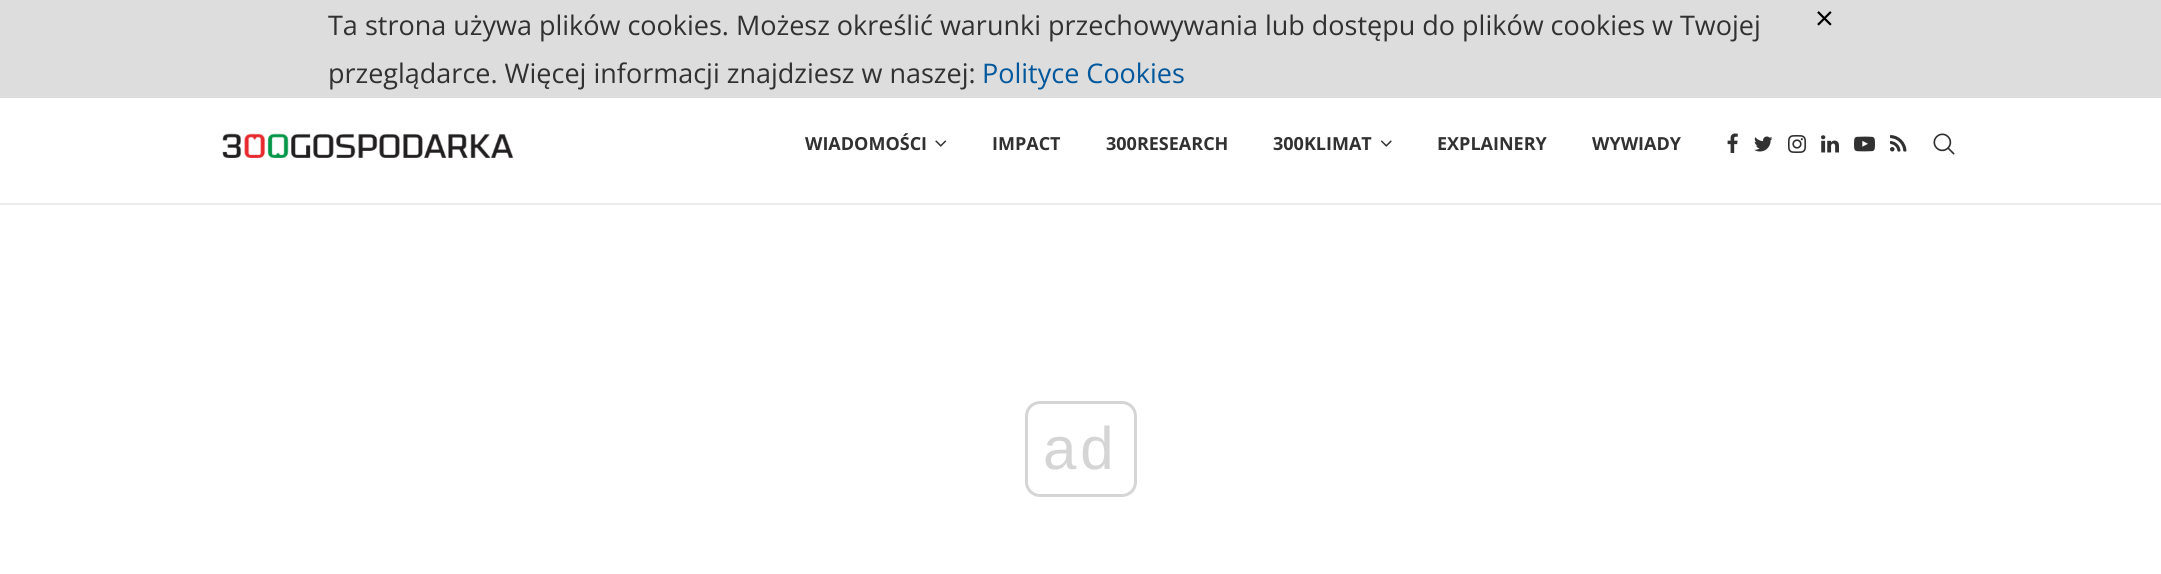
#include <cairo.h>
#include <math.h>
#include <stddef.h>


static void spaced_text(cairo_t *cr, double x, double y, const char *s, double letter, double word) {
    cairo_move_to(cr, x, y);
    while (*s) {
        char ch[5] = {0};
        int n = 0;
        do ch[n++] = *s++; while ((*s & 0xC0) == 0x80);
        cairo_show_text(cr, ch);
        cairo_rel_move_to(cr, letter + word * (*ch == ' '), 0);
    }
}

static void round_rect(cairo_t *cr, double x, double y, double w, double h, double r) {
    cairo_new_sub_path(cr);
    cairo_arc(cr, x + w - r, y + h - r, r, 0, M_PI / 2);
    cairo_arc(cr, x + r, y + h - r, r, M_PI / 2, M_PI);
    cairo_arc(cr, x + r, y + r, r, M_PI, 1.5 * M_PI);
    cairo_arc(cr, x + w - r, y + r, r, 1.5 * M_PI, 2 * M_PI);
    cairo_close_path(cr);
}

static void picture(cairo_t *cr, const char *path, double x, double y, double w, double h) {
    cairo_surface_t *image = cairo_image_surface_create_from_png(path);
    cairo_save(cr);
    cairo_set_source_surface(cr, image, x, y);
    cairo_rectangle(cr, x, y, w, h);
    cairo_fill(cr);
    cairo_restore(cr);
    cairo_surface_destroy(image);
}

int main(void) {
    cairo_surface_t *surface = cairo_image_surface_create(CAIRO_FORMAT_RGB24, 2161, 574);
    cairo_t *cr = cairo_create(surface);
    cairo_font_options_t *options = cairo_font_options_create();
    cairo_font_options_set_hint_metrics(options, CAIRO_HINT_METRICS_OFF);
    cairo_font_options_set_hint_style(options, CAIRO_HINT_STYLE_NONE);
    cairo_set_font_options(cr, options);
    cairo_set_miter_limit(cr, 4);
    cairo_set_source_rgb(cr, 1, 1, 1);
    cairo_paint(cr);
    cairo_set_source_rgb(cr, 0.867, 0.867, 0.867);
    cairo_rectangle(cr, 0, 0, 2161, 98);
    cairo_fill(cr);
    cairo_select_font_face(cr, "Open Sans", CAIRO_FONT_SLANT_NORMAL, CAIRO_FONT_WEIGHT_NORMAL);
    cairo_set_font_size(cr, 27);
    cairo_set_source_rgb(cr, 0.192, 0.192, 0.192);
    cairo_move_to(cr, 328, 35);
    cairo_show_text(cr, "Ta strona używa plików cookies. Możesz określić warunki przechowywania lub dostępu do plików cookies w Twojej");
    cairo_move_to(cr, 328, 83);
    cairo_show_text(cr, "przeglądarce. Więcej informacji znajdziesz w naszej:");
    cairo_set_source_rgb(cr, 0.004, 0.341, 0.608);
    cairo_move_to(cr, 982, 83);
    cairo_show_text(cr, "Polityce Cookies");
    cairo_set_font_size(cr, 33);
    cairo_set_source_rgb(cr, 0, 0, 0);
    cairo_move_to(cr, 1815, 30);
    cairo_show_text(cr, "×");
    cairo_set_source_rgb(cr, 0.925, 0.925, 0.925);
    cairo_rectangle(cr, 0, 203, 2161, 2);
    cairo_fill(cr);
    picture(cr, "img1.png", 222, 133, 292, 25);
    cairo_select_font_face(cr, "Open Sans", CAIRO_FONT_SLANT_NORMAL, CAIRO_FONT_WEIGHT_BOLD);
    cairo_set_font_size(cr, 18);
    cairo_set_source_rgb(cr, 0.192, 0.192, 0.192);
    cairo_move_to(cr, 805, 150);
    cairo_show_text(cr, "WIADOMOŚCI");
    picture(cr, "img2.png", 935, 140, 12, 7);
    cairo_move_to(cr, 992, 150);
    cairo_show_text(cr, "IMPACT");
    cairo_move_to(cr, 1106, 150);
    cairo_show_text(cr, "300RESEARCH");
    cairo_move_to(cr, 1273, 150);
    cairo_show_text(cr, "300KLIMAT");
    picture(cr, "img3.png", 1380, 140, 12, 7);
    cairo_move_to(cr, 1437, 150);
    cairo_show_text(cr, "EXPLAINERY");
    cairo_move_to(cr, 1592, 150);
    cairo_show_text(cr, "WYWIADY");
    picture(cr, "img4.png", 1727, 133, 11, 20);
    picture(cr, "img5.png", 1754, 136, 19, 16);
    picture(cr, "img6.png", 1788, 135, 18, 18);
    picture(cr, "img7.png", 1821, 135, 18, 18);
    picture(cr, "img8.png", 1854, 136, 21, 16);
    picture(cr, "img9.png", 1890, 135, 17, 17);
    picture(cr, "img10.png", 1933, 133, 22, 22);
    round_rect(cr, 1026.5, 402.5, 109, 93, 13.5);
    cairo_set_source_rgb(cr, 0.835, 0.835, 0.835);
    cairo_set_line_width(cr, 3);
    cairo_stroke(cr);
    cairo_select_font_face(cr, "Liberation Sans", CAIRO_FONT_SLANT_NORMAL, CAIRO_FONT_WEIGHT_NORMAL);
    cairo_set_font_size(cr, 60);
    spaced_text(cr, 1043, 469, "ad", 4, 0);
    cairo_surface_write_to_png(surface, "page.png");
    cairo_font_options_destroy(options);
    cairo_destroy(cr);
    cairo_surface_destroy(surface);
    return 0;
}
